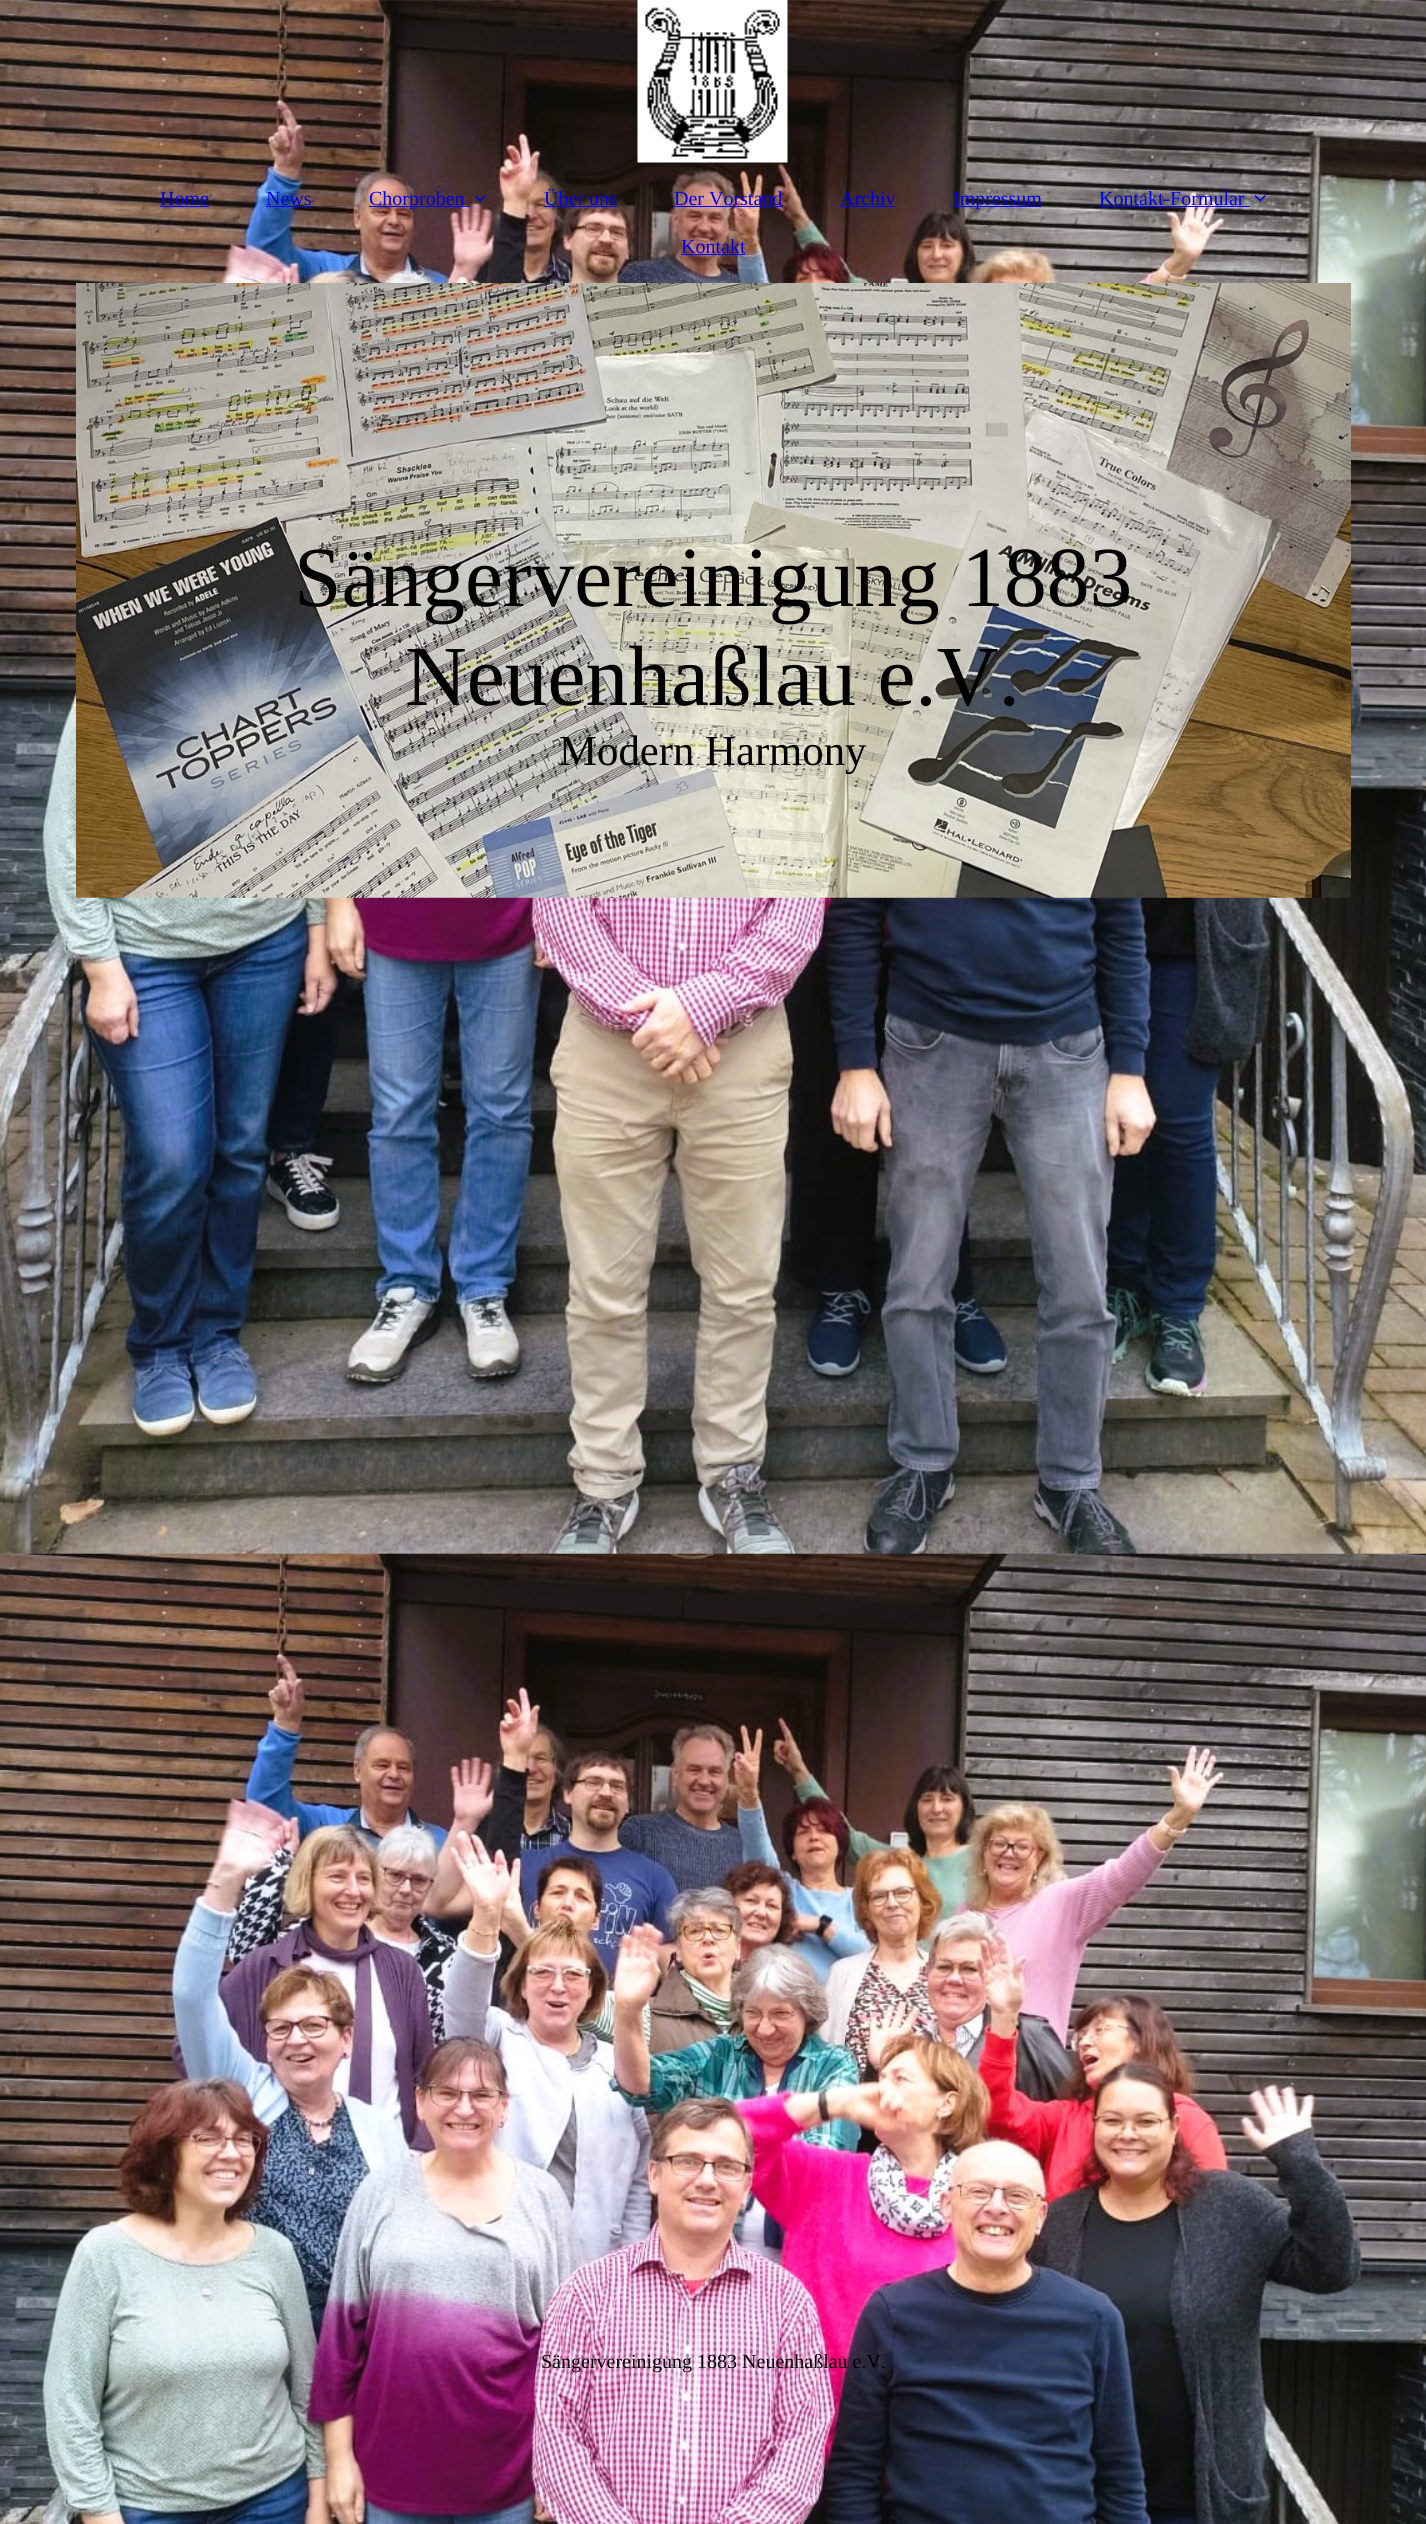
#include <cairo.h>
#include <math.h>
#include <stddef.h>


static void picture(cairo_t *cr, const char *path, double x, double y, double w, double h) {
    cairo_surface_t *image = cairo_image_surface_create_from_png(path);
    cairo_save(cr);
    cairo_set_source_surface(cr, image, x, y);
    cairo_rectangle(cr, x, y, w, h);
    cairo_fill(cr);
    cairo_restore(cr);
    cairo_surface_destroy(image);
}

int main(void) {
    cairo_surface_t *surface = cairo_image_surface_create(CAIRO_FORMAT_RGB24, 1426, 2524);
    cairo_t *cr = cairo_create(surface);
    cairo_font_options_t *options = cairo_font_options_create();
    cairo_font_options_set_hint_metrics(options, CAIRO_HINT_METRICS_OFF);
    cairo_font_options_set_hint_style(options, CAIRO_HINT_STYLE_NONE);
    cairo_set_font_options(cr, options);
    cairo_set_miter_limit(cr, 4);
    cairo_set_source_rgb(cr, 1, 1, 1);
    cairo_paint(cr);
    picture(cr, "img1.png", 0, 0, 1426, 2524);
    picture(cr, "img2.png", 637, 0, 151, 163);
    cairo_select_font_face(cr, "Liberation Serif", CAIRO_FONT_SLANT_NORMAL, CAIRO_FONT_WEIGHT_NORMAL);
    cairo_set_font_size(cr, 20);
    cairo_set_source_rgb(cr, 0, 0, 0.933);
    cairo_move_to(cr, 160, 205);
    cairo_show_text(cr, "Home");
    cairo_rectangle(cr, 160, 206, 49, 1);
    cairo_fill(cr);
    cairo_move_to(cr, 266, 205);
    cairo_show_text(cr, "News");
    cairo_rectangle(cr, 266, 206, 45, 1);
    cairo_fill(cr);
    cairo_rectangle(cr, 369, 206, 101, 1);
    cairo_fill(cr);
    cairo_move_to(cr, 369, 205);
    cairo_show_text(cr, "Chorproben");
    picture(cr, "img3.png", 474, 195, 12, 7);
    cairo_move_to(cr, 544, 205);
    cairo_show_text(cr, "Über uns");
    cairo_rectangle(cr, 544, 206, 72, 1);
    cairo_fill(cr);
    cairo_move_to(cr, 674, 205);
    cairo_show_text(cr, "Der Vorstand");
    cairo_rectangle(cr, 674, 206, 109, 1);
    cairo_fill(cr);
    cairo_move_to(cr, 840, 205);
    cairo_show_text(cr, "Archiv");
    cairo_rectangle(cr, 840, 206, 55, 1);
    cairo_fill(cr);
    cairo_rectangle(cr, 953, 206, 88, 1);
    cairo_fill(cr);
    cairo_move_to(cr, 953, 205);
    cairo_show_text(cr, "Impressum");
    cairo_move_to(cr, 1099, 205);
    cairo_show_text(cr, "Kontakt-Formular");
    cairo_rectangle(cr, 1099, 206, 151, 1);
    cairo_fill(cr);
    picture(cr, "img4.png", 1254, 195, 12, 7);
    cairo_move_to(cr, 681, 253);
    cairo_show_text(cr, "Kontakt");
    cairo_rectangle(cr, 681, 254, 64, 1);
    cairo_fill(cr);
    picture(cr, "img5.png", 76, 283, 1275, 615);
    cairo_set_font_size(cr, 85.5);
    cairo_set_source_rgb(cr, 0, 0, 0);
    cairo_move_to(cr, 294, 606);
    cairo_show_text(cr, "Sängervereinigung 1883");
    cairo_move_to(cr, 405, 705);
    cairo_show_text(cr, "Neuenhaßlau e.V.");
    cairo_set_font_size(cr, 42.75);
    cairo_move_to(cr, 559, 765);
    cairo_show_text(cr, "Modern Harmony");
    cairo_set_font_size(cr, 20);
    cairo_move_to(cr, 541, 2368);
    cairo_show_text(cr, "Sängervereinigung 1883 Neuenhaßlau e.V.");
    cairo_surface_write_to_png(surface, "page.png");
    cairo_font_options_destroy(options);
    cairo_destroy(cr);
    cairo_surface_destroy(surface);
    return 0;
}
